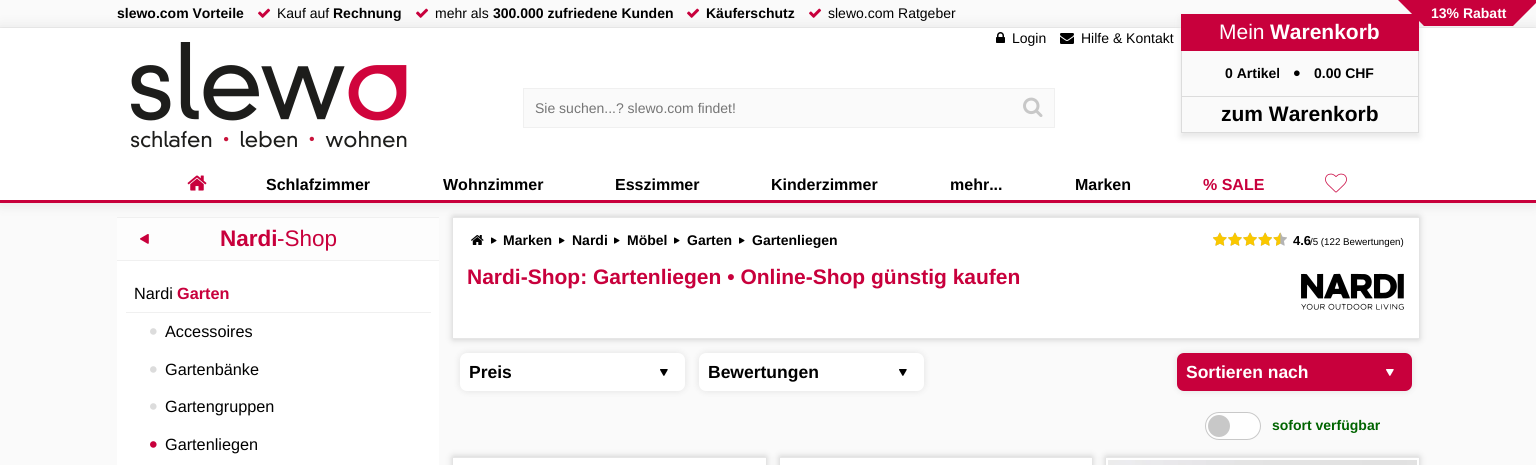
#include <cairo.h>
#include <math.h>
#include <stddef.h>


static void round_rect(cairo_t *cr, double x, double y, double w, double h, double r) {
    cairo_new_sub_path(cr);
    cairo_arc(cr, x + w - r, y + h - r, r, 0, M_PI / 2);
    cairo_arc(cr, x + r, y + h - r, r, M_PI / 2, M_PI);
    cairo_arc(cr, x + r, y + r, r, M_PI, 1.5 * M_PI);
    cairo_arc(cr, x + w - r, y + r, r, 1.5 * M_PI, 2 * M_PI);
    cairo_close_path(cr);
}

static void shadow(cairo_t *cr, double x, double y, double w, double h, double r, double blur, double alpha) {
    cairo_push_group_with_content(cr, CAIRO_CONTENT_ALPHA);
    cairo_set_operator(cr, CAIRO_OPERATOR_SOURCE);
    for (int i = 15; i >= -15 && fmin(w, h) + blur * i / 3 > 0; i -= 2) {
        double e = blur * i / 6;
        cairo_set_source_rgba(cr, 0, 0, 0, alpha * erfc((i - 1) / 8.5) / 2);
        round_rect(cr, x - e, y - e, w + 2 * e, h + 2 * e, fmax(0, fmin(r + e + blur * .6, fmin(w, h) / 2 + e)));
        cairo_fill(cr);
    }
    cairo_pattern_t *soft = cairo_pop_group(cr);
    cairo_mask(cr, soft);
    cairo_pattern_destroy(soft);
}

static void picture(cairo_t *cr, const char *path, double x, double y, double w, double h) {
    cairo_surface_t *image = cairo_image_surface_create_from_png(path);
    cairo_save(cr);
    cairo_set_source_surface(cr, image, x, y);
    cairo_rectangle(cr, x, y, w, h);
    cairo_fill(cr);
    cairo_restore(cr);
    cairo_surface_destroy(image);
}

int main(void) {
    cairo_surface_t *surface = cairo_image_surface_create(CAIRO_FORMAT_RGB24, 1536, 465);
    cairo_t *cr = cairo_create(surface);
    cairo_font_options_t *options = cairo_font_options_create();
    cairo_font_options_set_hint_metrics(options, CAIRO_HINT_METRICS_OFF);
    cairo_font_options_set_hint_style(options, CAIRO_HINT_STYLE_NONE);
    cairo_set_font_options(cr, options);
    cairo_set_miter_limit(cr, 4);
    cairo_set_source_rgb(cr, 0.98, 0.98, 0.98);
    cairo_paint(cr);
    cairo_set_source_rgb(cr, 0.941, 0.941, 0.941);
    cairo_rectangle(cr, 0, 27, 1536, 1);
    cairo_fill(cr);
    cairo_select_font_face(cr, "Liberation Sans", CAIRO_FONT_SLANT_NORMAL, CAIRO_FONT_WEIGHT_BOLD);
    cairo_set_font_size(cr, 14);
    cairo_set_source_rgb(cr, 0, 0, 0);
    cairo_move_to(cr, 117, 18);
    cairo_show_text(cr, "slewo.com Vorteile");
    picture(cr, "img1.png", 258, 8, 13, 10);
    cairo_select_font_face(cr, "Liberation Sans", CAIRO_FONT_SLANT_NORMAL, CAIRO_FONT_WEIGHT_NORMAL);
    cairo_move_to(cr, 277, 18);
    cairo_show_text(cr, "Kauf auf");
    cairo_select_font_face(cr, "Liberation Sans", CAIRO_FONT_SLANT_NORMAL, CAIRO_FONT_WEIGHT_BOLD);
    cairo_move_to(cr, 333, 18);
    cairo_show_text(cr, "Rechnung");
    picture(cr, "img1.png", 416, 8, 13, 10);
    cairo_select_font_face(cr, "Liberation Sans", CAIRO_FONT_SLANT_NORMAL, CAIRO_FONT_WEIGHT_NORMAL);
    cairo_move_to(cr, 435, 18);
    cairo_show_text(cr, "mehr als");
    cairo_select_font_face(cr, "Liberation Sans", CAIRO_FONT_SLANT_NORMAL, CAIRO_FONT_WEIGHT_BOLD);
    cairo_move_to(cr, 493, 18);
    cairo_show_text(cr, "300.000 zufriedene Kunden");
    picture(cr, "img1.png", 687, 8, 13, 10);
    cairo_move_to(cr, 706, 18);
    cairo_show_text(cr, "Käuferschutz");
    picture(cr, "img1.png", 809, 8, 13, 10);
    cairo_select_font_face(cr, "Liberation Sans", CAIRO_FONT_SLANT_NORMAL, CAIRO_FONT_WEIGHT_NORMAL);
    cairo_move_to(cr, 828, 18);
    cairo_show_text(cr, "slewo.com Ratgeber");
    cairo_set_source_rgb(cr, 0, 0, 0);
    shadow(cr, 0, 28, 1536, 175, 0, 7, 0.1);
    cairo_set_source_rgb(cr, 1, 1, 1);
    cairo_rectangle(cr, 0, 28, 1536, 172);
    cairo_fill(cr);
    cairo_set_source_rgb(cr, 0.784, 0, 0.235);
    cairo_rectangle(cr, 0, 200, 1536, 3);
    cairo_fill(cr);
    picture(cr, "img2.png", 996, 32, 9, 11);
    cairo_set_source_rgb(cr, 0, 0, 0);
    cairo_move_to(cr, 1012, 43);
    cairo_show_text(cr, "Login");
    picture(cr, "img3.png", 1060, 33, 14, 11);
    cairo_move_to(cr, 1081, 43);
    cairo_show_text(cr, "Hilfe & Kontakt");
    cairo_set_source_rgb(cr, 0.902, 0.902, 0.902);
    shadow(cr, 1181, 18, 238, 119, 0, 3.5, 1);
    cairo_set_source_rgb(cr, 0.98, 0.98, 0.98);
    cairo_rectangle(cr, 1182, 51, 236, 81);
    cairo_fill(cr);
    cairo_set_source_rgb(cr, 0.784, 0, 0.235);
    cairo_rectangle(cr, 1181, 14, 238, 37);
    cairo_fill(cr);
    cairo_set_font_size(cr, 21);
    cairo_set_source_rgb(cr, 1, 1, 1);
    cairo_move_to(cr, 1219, 39);
    cairo_show_text(cr, "Mein");
    cairo_select_font_face(cr, "Liberation Sans", CAIRO_FONT_SLANT_NORMAL, CAIRO_FONT_WEIGHT_BOLD);
    cairo_move_to(cr, 1270, 39);
    cairo_show_text(cr, "Warenkorb");
    cairo_set_source_rgb(cr, 0.863, 0.863, 0.863);
    cairo_rectangle(cr, 1418, 51, 1, 45);
    cairo_fill(cr);
    cairo_rectangle(cr, 1181, 51, 1, 45);
    cairo_fill(cr);
    cairo_set_font_size(cr, 14);
    cairo_set_source_rgb(cr, 0, 0, 0);
    cairo_move_to(cr, 1225, 78);
    cairo_show_text(cr, "0 Artikel");
    picture(cr, "img4.png", 1294, 70, 6, 7);
    cairo_move_to(cr, 1314, 78);
    cairo_show_text(cr, "0.00 CHF");
    cairo_rectangle(cr, 1181.5, 96.5, 237, 36);
    cairo_set_source_rgb(cr, 0.863, 0.863, 0.863);
    cairo_set_line_width(cr, 1);
    cairo_stroke(cr);
    cairo_set_font_size(cr, 21);
    cairo_set_source_rgb(cr, 0, 0, 0);
    cairo_move_to(cr, 1221, 121);
    cairo_show_text(cr, "zum Warenkorb");
    picture(cr, "img5.png", 131, 42, 276, 106);
    cairo_set_source_rgb(cr, 0.98, 0.98, 0.98);
    cairo_rectangle(cr, 523.5, 88.5, 531, 39);
    cairo_fill_preserve(cr);
    cairo_set_source_rgb(cr, 0.941, 0.941, 0.941);
    cairo_stroke(cr);
    cairo_select_font_face(cr, "Liberation Sans", CAIRO_FONT_SLANT_NORMAL, CAIRO_FONT_WEIGHT_NORMAL);
    cairo_set_font_size(cr, 14);
    cairo_set_source_rgb(cr, 0.459, 0.459, 0.459);
    cairo_move_to(cr, 535, 113);
    cairo_show_text(cr, "Sie suchen...? slewo.com findet!");
    picture(cr, "img6.png", 1023, 97, 20, 20);
    picture(cr, "img7.png", 187, 175, 20, 16);
    cairo_select_font_face(cr, "Liberation Sans", CAIRO_FONT_SLANT_NORMAL, CAIRO_FONT_WEIGHT_BOLD);
    cairo_set_font_size(cr, 16);
    cairo_set_source_rgb(cr, 0, 0, 0);
    cairo_move_to(cr, 266, 190);
    cairo_show_text(cr, "Schlafzimmer");
    cairo_move_to(cr, 443, 190);
    cairo_show_text(cr, "Wohnzimmer");
    cairo_move_to(cr, 615, 190);
    cairo_show_text(cr, "Esszimmer");
    cairo_move_to(cr, 771, 190);
    cairo_show_text(cr, "Kinderzimmer");
    cairo_move_to(cr, 950, 190);
    cairo_show_text(cr, "mehr...");
    cairo_move_to(cr, 1075, 190);
    cairo_show_text(cr, "Marken");
    cairo_set_source_rgb(cr, 0.784, 0, 0.235);
    cairo_move_to(cr, 1203, 190);
    cairo_show_text(cr, "% SALE");
    picture(cr, "img8.png", 1325, 173, 22, 20);
    cairo_set_source_rgb(cr, 1, 1, 1);
    cairo_rectangle(cr, 117, 261, 322, 204);
    cairo_fill(cr);
    cairo_set_source_rgb(cr, 0.941, 0.941, 0.941);
    cairo_rectangle(cr, 117, 217, 322, 1);
    cairo_fill(cr);
    cairo_set_source_rgb(cr, 0.992, 0.992, 0.992);
    cairo_rectangle(cr, 117, 218, 322, 42);
    cairo_fill(cr);
    cairo_set_source_rgb(cr, 0.941, 0.941, 0.941);
    cairo_rectangle(cr, 117, 260, 322, 1);
    cairo_fill(cr);
    picture(cr, "img9.png", 140, 234, 9, 10);
    cairo_set_font_size(cr, 22.5);
    cairo_set_source_rgb(cr, 0.784, 0, 0.235);
    cairo_move_to(cr, 220, 246);
    cairo_show_text(cr, "Nardi");
    cairo_select_font_face(cr, "Liberation Sans", CAIRO_FONT_SLANT_NORMAL, CAIRO_FONT_WEIGHT_NORMAL);
    cairo_move_to(cr, 277, 246);
    cairo_show_text(cr, "-Shop");
    cairo_set_source_rgb(cr, 0.941, 0.941, 0.941);
    cairo_rectangle(cr, 126, 312, 305, 1);
    cairo_fill(cr);
    cairo_set_font_size(cr, 16.25);
    cairo_set_source_rgb(cr, 0, 0, 0);
    cairo_move_to(cr, 134, 299);
    cairo_show_text(cr, "Nardi");
    cairo_select_font_face(cr, "Liberation Sans", CAIRO_FONT_SLANT_NORMAL, CAIRO_FONT_WEIGHT_BOLD);
    cairo_set_source_rgb(cr, 0.784, 0, 0.235);
    cairo_move_to(cr, 177, 299);
    cairo_show_text(cr, "Garten");
    picture(cr, "img10.png", 150, 328, 7, 7);
    cairo_select_font_face(cr, "Liberation Sans", CAIRO_FONT_SLANT_NORMAL, CAIRO_FONT_WEIGHT_NORMAL);
    cairo_set_source_rgb(cr, 0, 0, 0);
    cairo_move_to(cr, 165, 337);
    cairo_show_text(cr, "Accessoires");
    picture(cr, "img10.png", 150, 366, 7, 7);
    cairo_move_to(cr, 165, 375);
    cairo_show_text(cr, "Gartenbänke");
    picture(cr, "img10.png", 150, 403, 7, 7);
    cairo_move_to(cr, 165, 412);
    cairo_show_text(cr, "Gartengruppen");
    picture(cr, "img11.png", 150, 441, 7, 7);
    cairo_move_to(cr, 165, 450);
    cairo_show_text(cr, "Gartenliegen");
    cairo_set_source_rgb(cr, 0.784, 0.784, 0.784);
    shadow(cr, 453, 217, 966, 122, 0, 3.5, 1);
    cairo_set_source_rgb(cr, 1, 1, 1);
    cairo_rectangle(cr, 453, 218, 966, 120);
    cairo_fill(cr);
    cairo_set_source_rgb(cr, 0.902, 0.902, 0.902);
    cairo_rectangle(cr, 453, 217, 966, 1);
    cairo_fill(cr);
    cairo_rectangle(cr, 453, 338, 966, 1);
    cairo_fill(cr);
    picture(cr, "img12.png", 471, 235, 13, 10);
    picture(cr, "img13.png", 491, 237, 6, 7);
    cairo_select_font_face(cr, "Liberation Sans", CAIRO_FONT_SLANT_NORMAL, CAIRO_FONT_WEIGHT_BOLD);
    cairo_set_font_size(cr, 14);
    cairo_set_source_rgb(cr, 0, 0, 0);
    cairo_move_to(cr, 503, 245);
    cairo_show_text(cr, "Marken");
    picture(cr, "img13.png", 559, 237, 6, 7);
    cairo_move_to(cr, 572, 245);
    cairo_show_text(cr, "Nardi");
    picture(cr, "img13.png", 614, 237, 6, 7);
    cairo_move_to(cr, 627, 245);
    cairo_show_text(cr, "Möbel");
    picture(cr, "img13.png", 674, 237, 6, 7);
    cairo_move_to(cr, 687, 245);
    cairo_show_text(cr, "Garten");
    picture(cr, "img13.png", 739, 237, 6, 7);
    cairo_move_to(cr, 752, 245);
    cairo_show_text(cr, "Gartenliegen");
    picture(cr, "img14.png", 1213, 232, 74, 14);
    picture(cr, "img15.png", 1213, 232, 68, 14);
    cairo_set_font_size(cr, 13);
    cairo_move_to(cr, 1293, 245);
    cairo_show_text(cr, "4.6");
    cairo_select_font_face(cr, "Liberation Sans", CAIRO_FONT_SLANT_NORMAL, CAIRO_FONT_WEIGHT_NORMAL);
    cairo_set_font_size(cr, 9.75);
    cairo_move_to(cr, 1310, 245);
    cairo_show_text(cr, "/5 (122 Bewertungen)");
    cairo_select_font_face(cr, "Liberation Sans", CAIRO_FONT_SLANT_NORMAL, CAIRO_FONT_WEIGHT_BOLD);
    cairo_set_font_size(cr, 21);
    cairo_set_source_rgb(cr, 0.784, 0, 0.235);
    cairo_move_to(cr, 467, 284);
    cairo_show_text(cr, "Nardi-Shop: Gartenliegen • Online-Shop günstig kaufen");
    picture(cr, "img16.png", 1301, 273, 103, 37);
    cairo_set_source_rgb(cr, 0, 0, 0);
    shadow(cr, 460, 353, 225, 38, 7, 3.5, 0.1);
    cairo_set_source_rgb(cr, 1, 1, 1);
    round_rect(cr, 460, 353, 225, 38, 7);
    cairo_fill(cr);
    cairo_set_font_size(cr, 17.5);
    cairo_set_source_rgb(cr, 0, 0, 0);
    cairo_move_to(cr, 469, 378);
    cairo_show_text(cr, "Preis");
    picture(cr, "img17.png", 660, 369, 8, 7);
    cairo_set_source_rgb(cr, 0, 0, 0);
    shadow(cr, 699, 353, 225, 38, 7, 3.5, 0.1);
    cairo_set_source_rgb(cr, 1, 1, 1);
    round_rect(cr, 699, 353, 225, 38, 7);
    cairo_fill(cr);
    cairo_set_source_rgb(cr, 0, 0, 0);
    cairo_move_to(cr, 708, 378);
    cairo_show_text(cr, "Bewertungen");
    picture(cr, "img17.png", 899, 369, 8, 7);
    cairo_set_source_rgb(cr, 0, 0, 0);
    shadow(cr, 1177, 353, 235, 38, 7, 3.5, 0.1);
    cairo_set_source_rgb(cr, 0.784, 0, 0.235);
    round_rect(cr, 1177, 353, 235, 38, 7);
    cairo_fill(cr);
    cairo_set_source_rgb(cr, 1, 1, 1);
    cairo_move_to(cr, 1186, 378);
    cairo_show_text(cr, "Sortieren nach");
    picture(cr, "img18.png", 1386, 369, 8, 7);
    cairo_set_source_rgb(cr, 0.996, 0.996, 0.996);
    round_rect(cr, 1205.5, 412.5, 55, 27, 13.5);
    cairo_fill_preserve(cr);
    cairo_set_source_rgb(cr, 0.784, 0.784, 0.784);
    cairo_stroke(cr);
    cairo_arc(cr, 1219, 426, 11, 0, 2 * M_PI);
    cairo_fill(cr);
    cairo_set_font_size(cr, 14);
    cairo_set_source_rgb(cr, 0, 0.392, 0);
    cairo_move_to(cr, 1272, 430);
    cairo_show_text(cr, "sofort verfügbar");
    cairo_set_source_rgb(cr, 0.784, 0.784, 0.784);
    shadow(cr, 453, 457, 313, 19, 0, 3.5, 1);
    cairo_set_source_rgb(cr, 1, 1, 1);
    cairo_rectangle(cr, 453, 458, 313, 7);
    cairo_fill(cr);
    cairo_set_source_rgb(cr, 0.902, 0.902, 0.902);
    cairo_rectangle(cr, 453, 457, 313, 1);
    cairo_fill(cr);
    cairo_set_source_rgb(cr, 0.784, 0.784, 0.784);
    shadow(cr, 780, 457, 312, 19, 0, 3.5, 1);
    cairo_set_source_rgb(cr, 1, 1, 1);
    cairo_rectangle(cr, 780, 458, 312, 7);
    cairo_fill(cr);
    cairo_set_source_rgb(cr, 0.902, 0.902, 0.902);
    cairo_rectangle(cr, 780, 457, 312, 1);
    cairo_fill(cr);
    cairo_set_source_rgb(cr, 0.784, 0.784, 0.784);
    shadow(cr, 1106, 457, 313, 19, 0, 3.5, 1);
    cairo_set_source_rgb(cr, 1, 1, 1);
    cairo_rectangle(cr, 1106, 458, 313, 7);
    cairo_fill(cr);
    cairo_set_source_rgb(cr, 0.902, 0.902, 0.902);
    cairo_rectangle(cr, 1106, 457, 313, 1);
    cairo_fill(cr);
    picture(cr, "img19.png", 1108, 460, 309, 5);
    cairo_set_source_rgb(cr, 0.784, 0, 0.235);
    cairo_rectangle(cr, 1424, 0, 89, 26);
    cairo_fill(cr);
    cairo_new_path(cr);
    cairo_move_to(cr, 1424, -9.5);
    cairo_line_to(cr, 1424, 26);
    cairo_line_to(cr, 1394, -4);
    cairo_line_to(cr, 1399.5, -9.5);
    cairo_close_path(cr);
    cairo_fill(cr);
    cairo_set_source_rgb(cr, 1, 1, 1);
    cairo_move_to(cr, 1431, 18);
    cairo_show_text(cr, "13% Rabatt");
    cairo_set_source_rgb(cr, 0.784, 0, 0.235);
    cairo_new_path(cr);
    cairo_move_to(cr, 1513, 26);
    cairo_line_to(cr, 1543, -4);
    cairo_line_to(cr, 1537.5, -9.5);
    cairo_line_to(cr, 1513, -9.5);
    cairo_close_path(cr);
    cairo_fill(cr);
    cairo_surface_write_to_png(surface, "page.png");
    cairo_font_options_destroy(options);
    cairo_destroy(cr);
    cairo_surface_destroy(surface);
    return 0;
}
